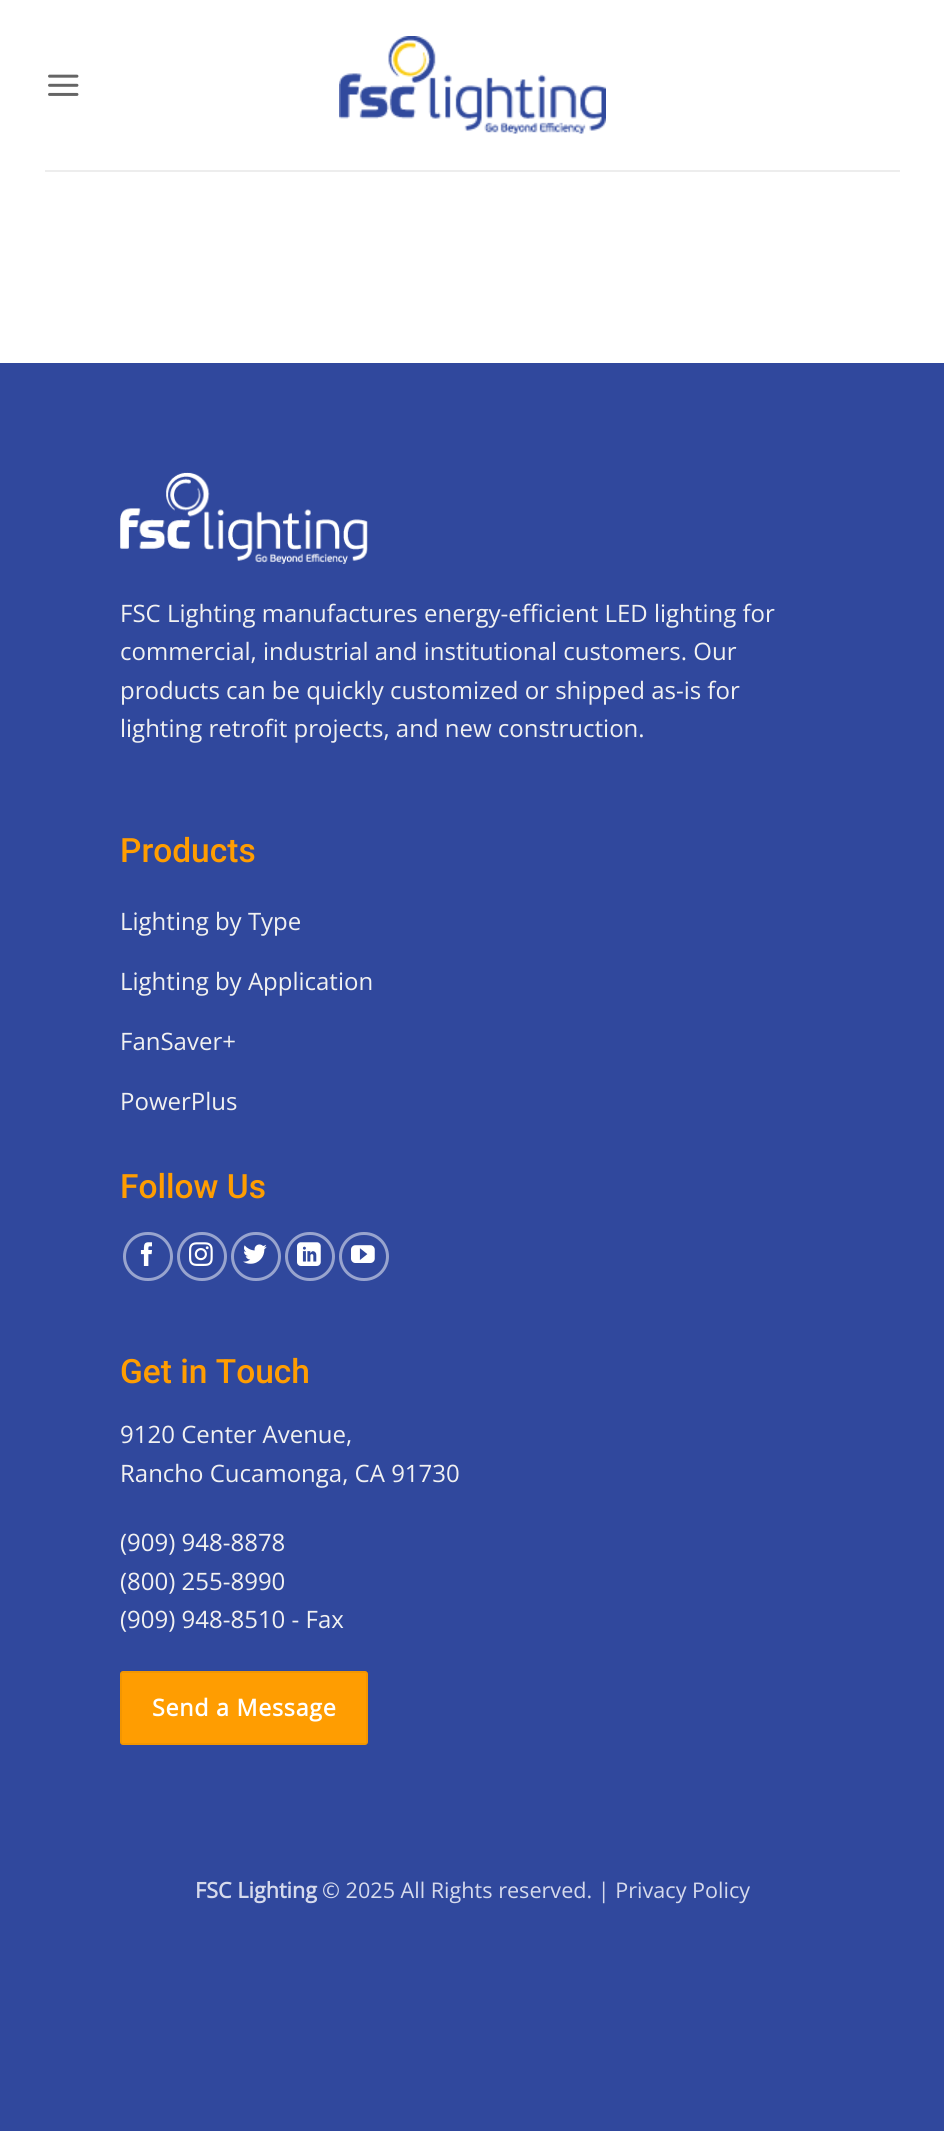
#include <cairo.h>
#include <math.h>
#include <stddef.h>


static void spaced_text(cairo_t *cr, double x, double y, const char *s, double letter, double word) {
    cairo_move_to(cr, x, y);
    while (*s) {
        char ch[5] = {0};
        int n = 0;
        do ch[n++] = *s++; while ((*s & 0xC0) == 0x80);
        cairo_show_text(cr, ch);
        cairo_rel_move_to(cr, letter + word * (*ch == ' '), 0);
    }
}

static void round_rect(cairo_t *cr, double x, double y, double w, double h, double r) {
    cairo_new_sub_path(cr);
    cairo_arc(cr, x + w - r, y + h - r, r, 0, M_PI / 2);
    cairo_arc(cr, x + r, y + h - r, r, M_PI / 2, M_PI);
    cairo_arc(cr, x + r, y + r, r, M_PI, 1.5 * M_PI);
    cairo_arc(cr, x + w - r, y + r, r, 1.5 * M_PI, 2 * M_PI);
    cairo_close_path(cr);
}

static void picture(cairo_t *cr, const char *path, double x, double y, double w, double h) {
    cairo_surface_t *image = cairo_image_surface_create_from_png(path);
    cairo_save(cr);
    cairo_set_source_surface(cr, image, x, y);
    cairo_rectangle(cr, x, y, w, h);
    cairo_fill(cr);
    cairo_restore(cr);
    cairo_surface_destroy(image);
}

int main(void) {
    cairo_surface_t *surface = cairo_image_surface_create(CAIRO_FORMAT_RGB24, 944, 2131);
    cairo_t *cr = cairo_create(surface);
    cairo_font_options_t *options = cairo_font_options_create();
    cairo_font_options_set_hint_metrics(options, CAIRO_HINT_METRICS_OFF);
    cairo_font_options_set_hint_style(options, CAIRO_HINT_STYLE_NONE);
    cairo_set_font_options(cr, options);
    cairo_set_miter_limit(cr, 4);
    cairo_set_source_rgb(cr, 0.188, 0.282, 0.616);
    cairo_paint(cr);
    cairo_set_source_rgb(cr, 1, 1, 1);
    cairo_rectangle(cr, 0, 0, 944, 363);
    cairo_fill(cr);
    picture(cr, "img1.png", 48, 74, 31, 22);
    picture(cr, "img2.png", 339, 36, 267, 98);
    cairo_set_source_rgb(cr, 0.929, 0.929, 0.929);
    cairo_rectangle(cr, 45, 170, 855, 2);
    cairo_fill(cr);
    picture(cr, "img3.png", 120, 472, 248, 92);
    cairo_select_font_face(cr, "Open Sans", CAIRO_FONT_SLANT_NORMAL, CAIRO_FONT_WEIGHT_NORMAL);
    cairo_set_font_size(cr, 24);
    cairo_set_source_rgb(cr, 0.945, 0.945, 0.945);
    cairo_move_to(cr, 120, 622);
    cairo_show_text(cr, "FSC Lighting manufactures energy-efficient LED lighting for");
    cairo_move_to(cr, 120, 660);
    cairo_show_text(cr, "commercial, industrial and institutional customers. Our");
    cairo_move_to(cr, 120, 699);
    cairo_show_text(cr, "products can be quickly customized or shipped as-is for");
    cairo_move_to(cr, 120, 737);
    cairo_show_text(cr, "lighting retrofit projects, and new construction.");
    cairo_select_font_face(cr, "Roboto Medium", CAIRO_FONT_SLANT_NORMAL, CAIRO_FONT_WEIGHT_NORMAL);
    cairo_set_font_size(cr, 33.5);
    cairo_set_source_rgb(cr, 1, 0.616, 0.004);
    cairo_move_to(cr, 120, 862);
    cairo_show_text(cr, "Products");
    cairo_select_font_face(cr, "Open Sans", CAIRO_FONT_SLANT_NORMAL, CAIRO_FONT_WEIGHT_NORMAL);
    cairo_set_font_size(cr, 24);
    cairo_set_source_rgb(cr, 0.945, 0.945, 0.945);
    cairo_move_to(cr, 120, 930);
    cairo_show_text(cr, "Lighting by Type");
    cairo_move_to(cr, 120, 990);
    cairo_show_text(cr, "Lighting by Application");
    cairo_move_to(cr, 120, 1050);
    cairo_show_text(cr, "FanSaver+");
    cairo_move_to(cr, 120, 1110);
    cairo_show_text(cr, "PowerPlus");
    cairo_select_font_face(cr, "Roboto Medium", CAIRO_FONT_SLANT_NORMAL, CAIRO_FONT_WEIGHT_NORMAL);
    cairo_set_font_size(cr, 33.5);
    cairo_set_source_rgb(cr, 1, 0.616, 0.004);
    cairo_move_to(cr, 120, 1198);
    cairo_show_text(cr, "Follow Us");
    round_rect(cr, 124.5, 1233.5, 47, 46, 23);
    cairo_set_source_rgb(cr, 0.596, 0.643, 0.808);
    cairo_set_line_width(cr, 3);
    cairo_stroke(cr);
    picture(cr, "img4.png", 140, 1242, 12, 24);
    round_rect(cr, 178.5, 1233.5, 47, 46, 23);
    cairo_stroke(cr);
    picture(cr, "img5.png", 189, 1242, 24, 24);
    round_rect(cr, 232.5, 1233.5, 47, 46, 23);
    cairo_stroke(cr);
    picture(cr, "img6.png", 243, 1244, 24, 20);
    round_rect(cr, 286.5, 1233.5, 47, 46, 23);
    cairo_stroke(cr);
    picture(cr, "img7.png", 297, 1242, 24, 24);
    round_rect(cr, 340.5, 1233.5, 47, 46, 23);
    cairo_stroke(cr);
    picture(cr, "img8.png", 351, 1245, 24, 18);
    cairo_set_source_rgb(cr, 1, 0.616, 0.004);
    cairo_move_to(cr, 120, 1383);
    cairo_show_text(cr, "Get in Touch");
    cairo_select_font_face(cr, "Open Sans", CAIRO_FONT_SLANT_NORMAL, CAIRO_FONT_WEIGHT_NORMAL);
    cairo_set_font_size(cr, 24);
    cairo_set_source_rgb(cr, 0.945, 0.945, 0.945);
    cairo_move_to(cr, 120, 1443);
    cairo_show_text(cr, "9120 Center Avenue,");
    cairo_move_to(cr, 120, 1482);
    cairo_show_text(cr, "Rancho Cucamonga, CA 91730");
    cairo_move_to(cr, 120, 1551);
    cairo_show_text(cr, "(909) 948-8878");
    cairo_move_to(cr, 120, 1590);
    cairo_show_text(cr, "(800) 255-8990");
    cairo_move_to(cr, 120, 1628);
    cairo_show_text(cr, "(909) 948-8510 - Fax");
    cairo_set_source_rgb(cr, 1, 0.616, 0.004);
    round_rect(cr, 120, 1671, 248, 74, 3);
    cairo_fill(cr);
    cairo_rectangle(cr, 121, 1672, 246, 72);
    cairo_set_source_rgba(cr, 0, 0, 0, 0.05);
    cairo_set_line_width(cr, 2);
    cairo_stroke(cr);
    cairo_select_font_face(cr, "Open Sans", CAIRO_FONT_SLANT_NORMAL, CAIRO_FONT_WEIGHT_BOLD);
    cairo_set_font_size(cr, 23.25);
    cairo_set_source_rgb(cr, 1, 1, 1);
    spaced_text(cr, 152, 1716, "Send a Message", 0.75, 0);
    cairo_set_font_size(cr, 21.6);
    cairo_set_source_rgb(cr, 0.839, 0.855, 0.922);
    cairo_move_to(cr, 195, 1898);
    cairo_show_text(cr, "FSC Lighting");
    cairo_select_font_face(cr, "Open Sans", CAIRO_FONT_SLANT_NORMAL, CAIRO_FONT_WEIGHT_NORMAL);
    cairo_move_to(cr, 322, 1898);
    cairo_show_text(cr, "© 2025 All Rights reserved. | Privacy Policy");
    cairo_surface_write_to_png(surface, "page.png");
    cairo_font_options_destroy(options);
    cairo_destroy(cr);
    cairo_surface_destroy(surface);
    return 0;
}
